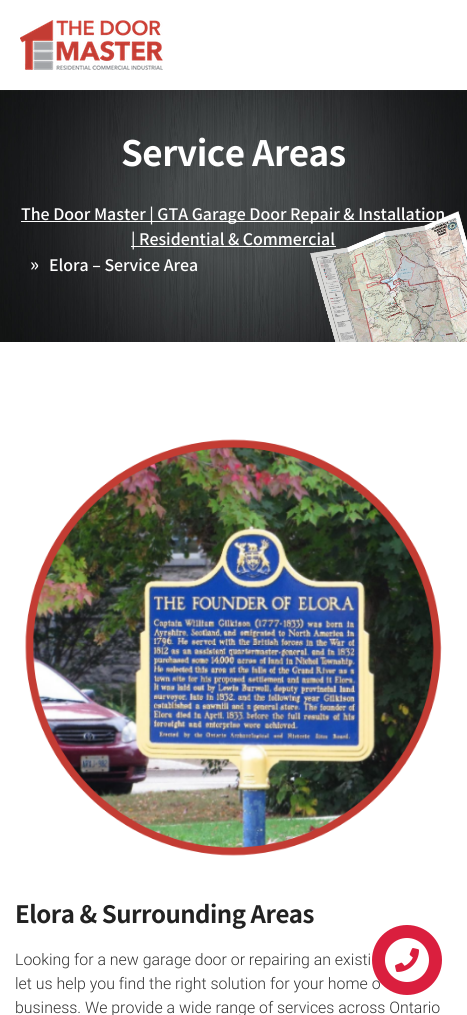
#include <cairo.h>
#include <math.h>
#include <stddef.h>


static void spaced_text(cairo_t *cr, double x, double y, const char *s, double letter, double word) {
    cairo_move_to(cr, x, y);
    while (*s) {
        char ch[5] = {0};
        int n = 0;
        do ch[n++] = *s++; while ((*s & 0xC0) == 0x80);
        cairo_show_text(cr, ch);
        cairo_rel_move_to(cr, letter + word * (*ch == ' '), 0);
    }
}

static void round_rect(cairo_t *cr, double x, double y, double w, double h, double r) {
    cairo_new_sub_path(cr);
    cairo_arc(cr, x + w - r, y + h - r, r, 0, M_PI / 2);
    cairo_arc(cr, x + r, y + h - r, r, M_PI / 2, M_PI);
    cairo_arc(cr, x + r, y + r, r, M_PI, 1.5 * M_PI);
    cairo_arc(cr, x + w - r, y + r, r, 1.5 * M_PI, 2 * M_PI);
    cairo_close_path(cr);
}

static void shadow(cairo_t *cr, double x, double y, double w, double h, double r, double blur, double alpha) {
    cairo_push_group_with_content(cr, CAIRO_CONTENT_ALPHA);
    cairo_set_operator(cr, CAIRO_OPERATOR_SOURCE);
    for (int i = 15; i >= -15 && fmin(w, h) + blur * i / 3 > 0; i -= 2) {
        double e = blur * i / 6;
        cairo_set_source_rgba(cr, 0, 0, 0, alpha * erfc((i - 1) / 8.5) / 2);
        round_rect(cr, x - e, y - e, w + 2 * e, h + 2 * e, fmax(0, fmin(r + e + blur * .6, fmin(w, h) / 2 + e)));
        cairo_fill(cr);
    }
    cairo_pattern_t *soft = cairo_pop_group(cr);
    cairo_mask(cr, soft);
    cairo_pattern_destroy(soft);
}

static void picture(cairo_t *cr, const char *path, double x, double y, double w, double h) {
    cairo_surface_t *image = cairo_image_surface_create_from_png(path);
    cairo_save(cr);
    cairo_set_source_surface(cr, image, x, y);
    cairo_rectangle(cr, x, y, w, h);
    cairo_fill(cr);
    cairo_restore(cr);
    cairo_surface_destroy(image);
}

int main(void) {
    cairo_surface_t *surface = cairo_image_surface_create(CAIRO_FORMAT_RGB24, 467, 1015);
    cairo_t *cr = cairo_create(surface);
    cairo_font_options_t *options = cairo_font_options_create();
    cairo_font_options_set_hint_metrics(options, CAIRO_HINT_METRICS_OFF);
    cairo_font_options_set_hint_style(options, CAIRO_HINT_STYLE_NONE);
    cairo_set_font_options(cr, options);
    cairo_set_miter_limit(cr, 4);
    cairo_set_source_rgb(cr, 1, 1, 1);
    cairo_paint(cr);
    picture(cr, "img2.png", 0, 90, 467, 252);
    cairo_set_source_rgb(cr, 0.196, 0.196, 0.196);
    shadow(cr, 0, 0, 467, 90, 0, 1, 0.4);
    cairo_set_source_rgb(cr, 1, 1, 1);
    cairo_rectangle(cr, 0, 0, 467, 90);
    cairo_fill(cr);
    picture(cr, "img1.png", 20, 20, 143, 50);
    cairo_select_font_face(cr, "Noto Sans TC", CAIRO_FONT_SLANT_NORMAL, CAIRO_FONT_WEIGHT_BOLD);
    cairo_set_font_size(cr, 35);
    spaced_text(cr, 121, 166, "Service Areas", -0.5, 0);
    cairo_rectangle(cr, 21, 221, 425, 1);
    cairo_fill(cr);
    cairo_select_font_face(cr, "Noto Sans TC Medium", CAIRO_FONT_SLANT_NORMAL, CAIRO_FONT_WEIGHT_NORMAL);
    cairo_set_font_size(cr, 15.9);
    cairo_move_to(cr, 21, 220);
    cairo_show_text(cr, "The Door Master | GTA Garage Door Repair & Installation");
    cairo_rectangle(cr, 131, 246, 205, 1);
    cairo_fill(cr);
    cairo_move_to(cr, 131, 245);
    cairo_show_text(cr, "| Residential & Commercial");
    cairo_set_font_size(cr, 18);
    cairo_move_to(cr, 30, 271);
    cairo_show_text(cr, "»");
    cairo_set_font_size(cr, 15.9);
    cairo_move_to(cr, 49, 271);
    cairo_show_text(cr, "Elora – Service Area");
    picture(cr, "img3.png", 25, 439, 417, 417);
    cairo_select_font_face(cr, "Noto Sans TC", CAIRO_FONT_SLANT_NORMAL, CAIRO_FONT_WEIGHT_BOLD);
    cairo_set_font_size(cr, 24);
    cairo_set_source_rgb(cr, 0.133, 0.133, 0.133);
    spaced_text(cr, 15, 923, "Elora & Surrounding Areas", -0.5, 0);
    cairo_select_font_face(cr, "Roboto Light", CAIRO_FONT_SLANT_NORMAL, CAIRO_FONT_WEIGHT_NORMAL);
    cairo_set_font_size(cr, 15.9);
    cairo_set_source_rgb(cr, 0.2, 0.2, 0.2);
    cairo_move_to(cr, 15, 965);
    cairo_show_text(cr, "Looking for a new garage door or repairing an existi");
    cairo_move_to(cr, 15, 989);
    cairo_show_text(cr, "let us help you find the right solution for your home o");
    cairo_move_to(cr, 15, 1013);
    cairo_show_text(cr, "business. We provide a wide range of services across Ontario");
    cairo_set_source_rgb(cr, 0.855, 0.122, 0.243);
    cairo_new_path(cr);
    cairo_arc(cr, 407, 960, 35, 0, 2 * M_PI);
    cairo_fill(cr);
    cairo_set_source_rgb(cr, 1, 1, 1);
    cairo_arc(cr, 407, 960, 22, 0, 2 * M_PI);
    cairo_fill(cr);
    picture(cr, "img4.png", 395, 948, 24, 24);
    cairo_surface_write_to_png(surface, "page.png");
    cairo_font_options_destroy(options);
    cairo_destroy(cr);
    cairo_surface_destroy(surface);
    return 0;
}
